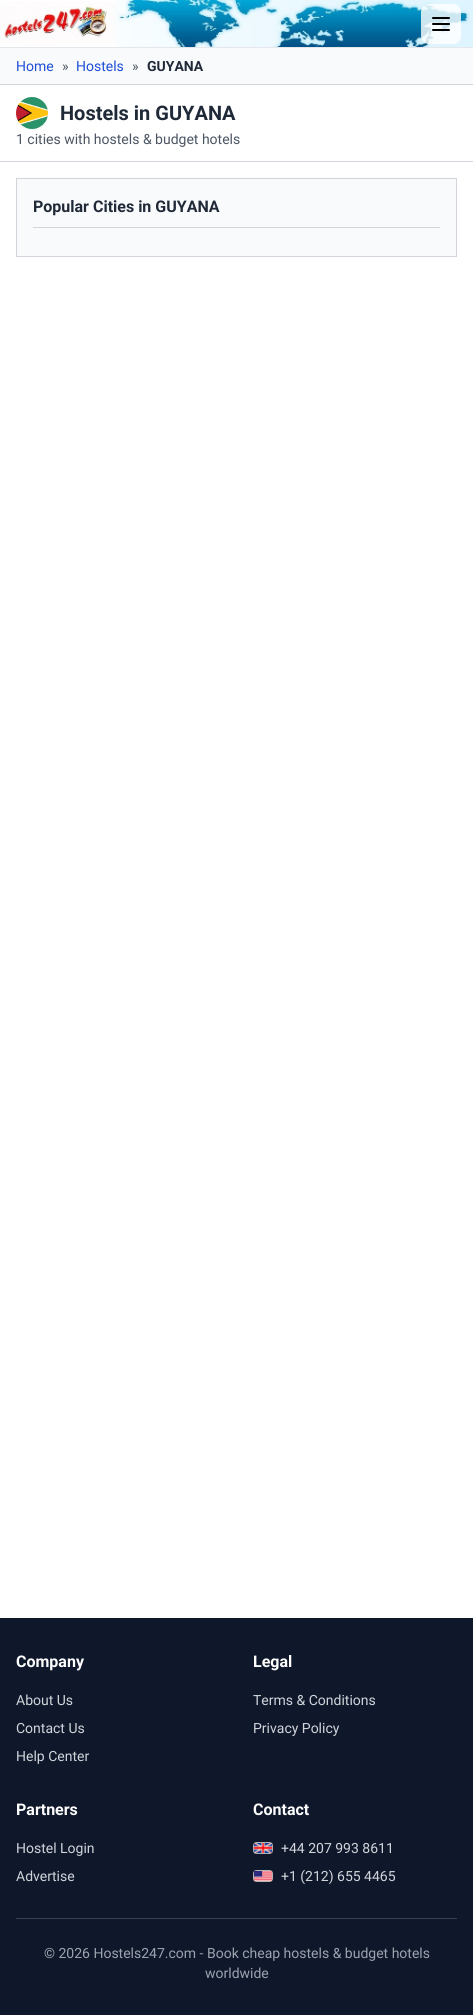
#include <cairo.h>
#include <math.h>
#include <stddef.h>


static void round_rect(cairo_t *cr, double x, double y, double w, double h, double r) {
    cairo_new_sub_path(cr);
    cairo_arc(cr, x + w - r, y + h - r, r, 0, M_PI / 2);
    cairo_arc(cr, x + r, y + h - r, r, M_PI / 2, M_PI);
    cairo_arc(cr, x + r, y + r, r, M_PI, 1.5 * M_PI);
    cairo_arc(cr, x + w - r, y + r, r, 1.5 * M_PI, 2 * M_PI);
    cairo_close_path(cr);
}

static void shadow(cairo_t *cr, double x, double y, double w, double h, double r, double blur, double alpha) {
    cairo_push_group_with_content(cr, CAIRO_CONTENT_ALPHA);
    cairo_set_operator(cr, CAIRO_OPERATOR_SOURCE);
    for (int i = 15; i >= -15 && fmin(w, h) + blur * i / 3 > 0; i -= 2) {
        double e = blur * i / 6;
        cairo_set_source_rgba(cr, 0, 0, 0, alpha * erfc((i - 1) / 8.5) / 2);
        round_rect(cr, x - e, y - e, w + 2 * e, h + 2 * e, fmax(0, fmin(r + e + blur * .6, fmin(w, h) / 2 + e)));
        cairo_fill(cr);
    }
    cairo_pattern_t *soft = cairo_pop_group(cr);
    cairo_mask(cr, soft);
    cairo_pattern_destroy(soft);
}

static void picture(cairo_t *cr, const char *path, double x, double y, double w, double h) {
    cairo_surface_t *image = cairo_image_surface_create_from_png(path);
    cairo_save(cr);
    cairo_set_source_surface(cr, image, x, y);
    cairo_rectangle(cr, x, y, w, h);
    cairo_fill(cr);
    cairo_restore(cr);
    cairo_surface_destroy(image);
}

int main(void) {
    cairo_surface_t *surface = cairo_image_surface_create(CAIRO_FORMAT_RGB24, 473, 2015);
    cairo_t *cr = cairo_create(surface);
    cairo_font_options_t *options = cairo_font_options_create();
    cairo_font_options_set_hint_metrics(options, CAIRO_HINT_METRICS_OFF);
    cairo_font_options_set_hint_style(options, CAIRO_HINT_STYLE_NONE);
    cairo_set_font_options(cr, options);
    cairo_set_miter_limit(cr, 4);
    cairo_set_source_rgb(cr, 1, 1, 1);
    cairo_paint(cr);
    cairo_set_source_rgb(cr, 0.898, 0.906, 0.922);
    cairo_rectangle(cr, 0, 47, 473, 1);
    cairo_fill(cr);
    picture(cr, "img1.png", 0, 0, 473, 47);
    cairo_set_source_rgba(cr, 1, 1, 1, 0.8);
    round_rect(cr, 421, 4, 40, 40, 8);
    cairo_fill(cr);
    cairo_new_path(cr);
    cairo_move_to(cr, 433, 18);
    cairo_line_to(cr, 449, 18);
    cairo_move_to(cr, 433, 24);
    cairo_line_to(cr, 449, 24);
    cairo_move_to(cr, 433, 30);
    cairo_line_to(cr, 449, 30);
    cairo_set_source_rgb(cr, 0, 0, 0);
    cairo_set_line_cap(cr, CAIRO_LINE_CAP_ROUND);
    cairo_set_line_join(cr, CAIRO_LINE_JOIN_ROUND);
    cairo_stroke(cr);
    cairo_set_source_rgb(cr, 0.973, 0.98, 0.988);
    cairo_rectangle(cr, 0, 48, 473, 36);
    cairo_fill(cr);
    cairo_set_source_rgb(cr, 0.82, 0.835, 0.859);
    cairo_rectangle(cr, 0, 84, 473, 1);
    cairo_fill(cr);
    cairo_select_font_face(cr, "Roboto", CAIRO_FONT_SLANT_NORMAL, CAIRO_FONT_WEIGHT_NORMAL);
    cairo_set_font_size(cr, 14);
    cairo_set_source_rgb(cr, 0.114, 0.306, 0.847);
    cairo_move_to(cr, 16, 71);
    cairo_show_text(cr, "Home");
    cairo_set_source_rgb(cr, 0.294, 0.333, 0.388);
    cairo_move_to(cr, 62, 71);
    cairo_show_text(cr, "»");
    cairo_set_source_rgb(cr, 0.114, 0.306, 0.847);
    cairo_move_to(cr, 76, 71);
    cairo_show_text(cr, "Hostels");
    cairo_set_source_rgb(cr, 0.294, 0.333, 0.388);
    cairo_move_to(cr, 132, 71);
    cairo_show_text(cr, "»");
    cairo_select_font_face(cr, "Roboto", CAIRO_FONT_SLANT_NORMAL, CAIRO_FONT_WEIGHT_BOLD);
    cairo_set_source_rgb(cr, 0.122, 0.161, 0.216);
    cairo_move_to(cr, 147, 71);
    cairo_show_text(cr, "GUYANA");
    cairo_set_source_rgb(cr, 0.82, 0.835, 0.859);
    cairo_rectangle(cr, 0, 161, 473, 1);
    cairo_fill(cr);
    cairo_set_source_rgb(cr, 0, 0, 0);
    shadow(cr, 16, 98, 32, 32, 16, 1, 0.05);
    picture(cr, "img2.png", 16, 97, 32, 32);
    cairo_set_font_size(cr, 20);
    cairo_set_source_rgb(cr, 0.122, 0.161, 0.216);
    cairo_move_to(cr, 60, 120);
    cairo_show_text(cr, "Hostels in GUYANA");
    cairo_select_font_face(cr, "Roboto", CAIRO_FONT_SLANT_NORMAL, CAIRO_FONT_WEIGHT_NORMAL);
    cairo_set_font_size(cr, 14);
    cairo_set_source_rgb(cr, 0.294, 0.333, 0.388);
    cairo_move_to(cr, 16, 144);
    cairo_show_text(cr, "1 cities with hostels & budget hotels");
    cairo_set_source_rgb(cr, 0.973, 0.98, 0.988);
    cairo_rectangle(cr, 16.5, 178.5, 440, 78);
    cairo_fill_preserve(cr);
    cairo_set_source_rgb(cr, 0.82, 0.835, 0.859);
    cairo_set_line_width(cr, 1);
    cairo_set_line_cap(cr, CAIRO_LINE_CAP_BUTT);
    cairo_set_line_join(cr, CAIRO_LINE_JOIN_MITER);
    cairo_stroke(cr);
    cairo_rectangle(cr, 33, 227, 407, 1);
    cairo_fill(cr);
    cairo_select_font_face(cr, "Roboto", CAIRO_FONT_SLANT_NORMAL, CAIRO_FONT_WEIGHT_BOLD);
    cairo_set_font_size(cr, 16);
    cairo_set_source_rgb(cr, 0.122, 0.161, 0.216);
    cairo_move_to(cr, 33, 212);
    cairo_show_text(cr, "Popular Cities in GUYANA");
    cairo_set_source_rgb(cr, 0.059, 0.09, 0.165);
    cairo_rectangle(cr, 0, 1618, 473, 397);
    cairo_fill(cr);
    cairo_set_source_rgb(cr, 1, 1, 1);
    cairo_move_to(cr, 16, 1667);
    cairo_show_text(cr, "Company");
    cairo_select_font_face(cr, "Roboto", CAIRO_FONT_SLANT_NORMAL, CAIRO_FONT_WEIGHT_NORMAL);
    cairo_set_font_size(cr, 14);
    cairo_set_source_rgb(cr, 0.82, 0.835, 0.859);
    cairo_move_to(cr, 16, 1705);
    cairo_show_text(cr, "About Us");
    cairo_move_to(cr, 16, 1733);
    cairo_show_text(cr, "Contact Us");
    cairo_move_to(cr, 16, 1761);
    cairo_show_text(cr, "Help Center");
    cairo_select_font_face(cr, "Roboto", CAIRO_FONT_SLANT_NORMAL, CAIRO_FONT_WEIGHT_BOLD);
    cairo_set_font_size(cr, 16);
    cairo_set_source_rgb(cr, 1, 1, 1);
    cairo_move_to(cr, 253, 1667);
    cairo_show_text(cr, "Legal");
    cairo_select_font_face(cr, "Roboto", CAIRO_FONT_SLANT_NORMAL, CAIRO_FONT_WEIGHT_NORMAL);
    cairo_set_font_size(cr, 14);
    cairo_set_source_rgb(cr, 0.82, 0.835, 0.859);
    cairo_move_to(cr, 253, 1705);
    cairo_show_text(cr, "Terms & Conditions");
    cairo_move_to(cr, 253, 1733);
    cairo_show_text(cr, "Privacy Policy");
    cairo_select_font_face(cr, "Roboto", CAIRO_FONT_SLANT_NORMAL, CAIRO_FONT_WEIGHT_BOLD);
    cairo_set_font_size(cr, 16);
    cairo_set_source_rgb(cr, 1, 1, 1);
    cairo_move_to(cr, 16, 1815);
    cairo_show_text(cr, "Partners");
    cairo_select_font_face(cr, "Roboto", CAIRO_FONT_SLANT_NORMAL, CAIRO_FONT_WEIGHT_NORMAL);
    cairo_set_font_size(cr, 14);
    cairo_set_source_rgb(cr, 0.82, 0.835, 0.859);
    cairo_move_to(cr, 16, 1853);
    cairo_show_text(cr, "Hostel Login");
    cairo_move_to(cr, 16, 1881);
    cairo_show_text(cr, "Advertise");
    cairo_select_font_face(cr, "Roboto", CAIRO_FONT_SLANT_NORMAL, CAIRO_FONT_WEIGHT_BOLD);
    cairo_set_font_size(cr, 16);
    cairo_set_source_rgb(cr, 1, 1, 1);
    cairo_move_to(cr, 253, 1815);
    cairo_show_text(cr, "Contact");
    picture(cr, "img3.png", 253, 1842, 20, 12);
    cairo_select_font_face(cr, "Roboto", CAIRO_FONT_SLANT_NORMAL, CAIRO_FONT_WEIGHT_NORMAL);
    cairo_set_font_size(cr, 14);
    cairo_set_source_rgb(cr, 0.82, 0.835, 0.859);
    cairo_move_to(cr, 281, 1853);
    cairo_show_text(cr, "+44 207 993 8611");
    picture(cr, "img4.png", 253, 1870, 20, 12);
    cairo_move_to(cr, 281, 1881);
    cairo_show_text(cr, "+1 (212) 655 4465");
    cairo_set_source_rgb(cr, 0.216, 0.255, 0.318);
    cairo_rectangle(cr, 16, 1918, 441, 1);
    cairo_fill(cr);
    cairo_set_source_rgb(cr, 0.612, 0.639, 0.686);
    cairo_move_to(cr, 44, 1958);
    cairo_show_text(cr, "© 2026 Hostels247.com - Book cheap hostels & budget hotels");
    cairo_move_to(cr, 205, 1978);
    cairo_show_text(cr, "worldwide");
    cairo_surface_write_to_png(surface, "page.png");
    cairo_font_options_destroy(options);
    cairo_destroy(cr);
    cairo_surface_destroy(surface);
    return 0;
}
